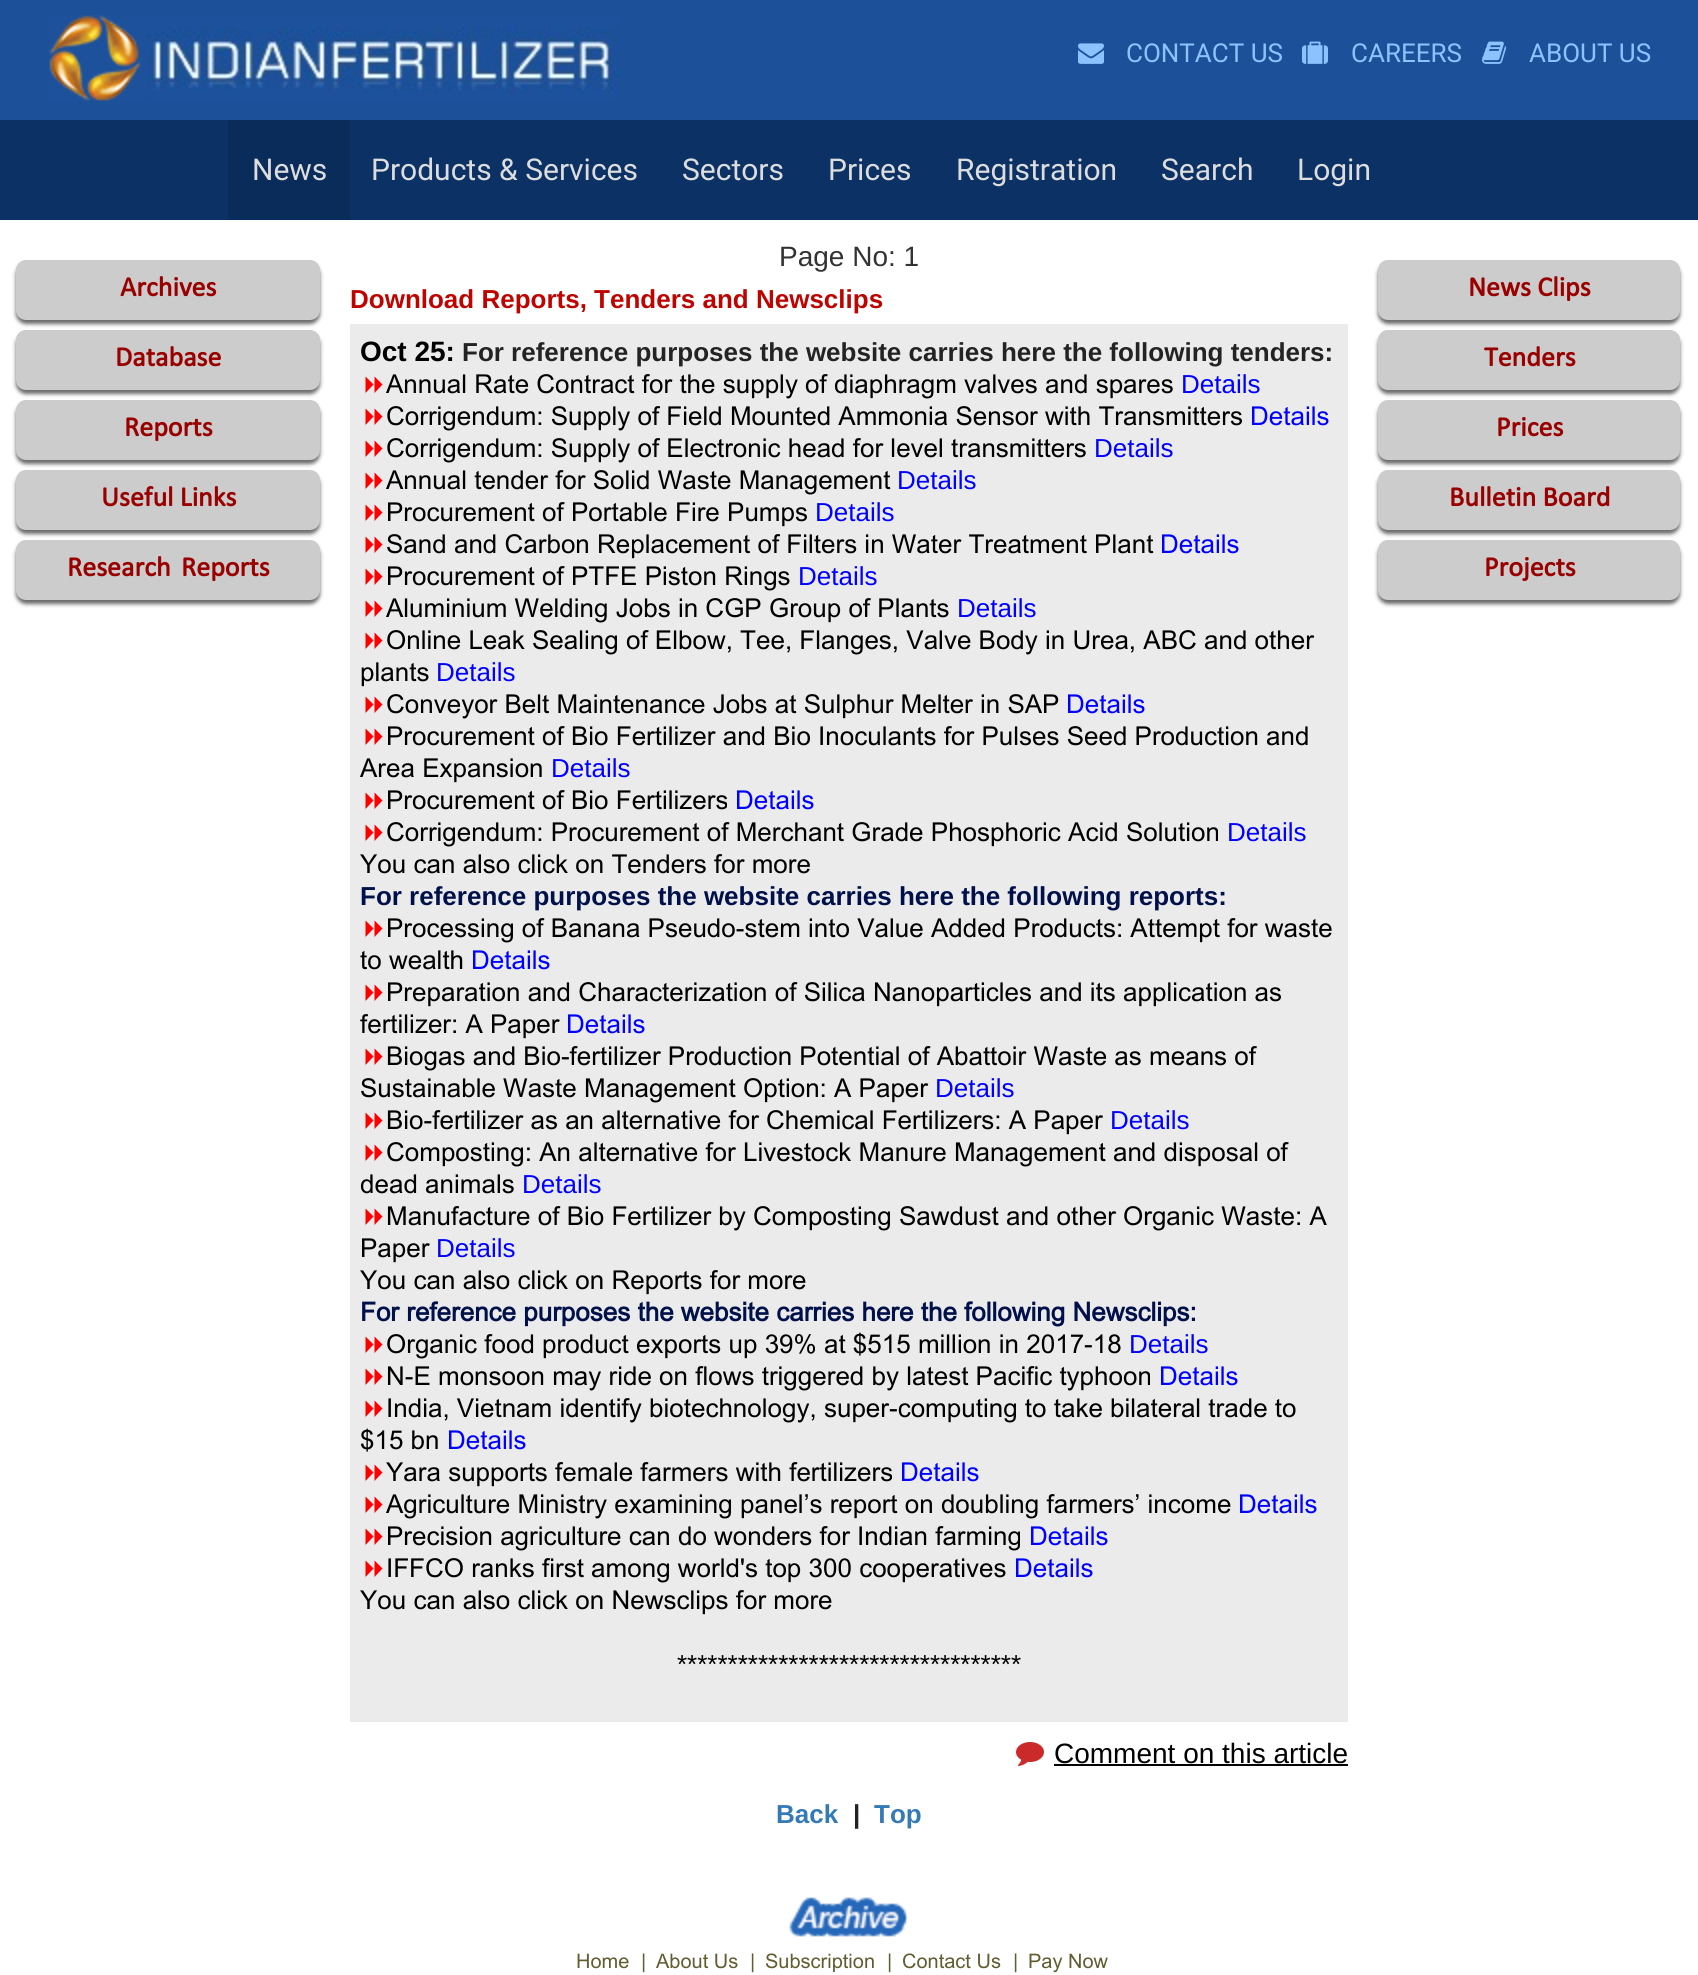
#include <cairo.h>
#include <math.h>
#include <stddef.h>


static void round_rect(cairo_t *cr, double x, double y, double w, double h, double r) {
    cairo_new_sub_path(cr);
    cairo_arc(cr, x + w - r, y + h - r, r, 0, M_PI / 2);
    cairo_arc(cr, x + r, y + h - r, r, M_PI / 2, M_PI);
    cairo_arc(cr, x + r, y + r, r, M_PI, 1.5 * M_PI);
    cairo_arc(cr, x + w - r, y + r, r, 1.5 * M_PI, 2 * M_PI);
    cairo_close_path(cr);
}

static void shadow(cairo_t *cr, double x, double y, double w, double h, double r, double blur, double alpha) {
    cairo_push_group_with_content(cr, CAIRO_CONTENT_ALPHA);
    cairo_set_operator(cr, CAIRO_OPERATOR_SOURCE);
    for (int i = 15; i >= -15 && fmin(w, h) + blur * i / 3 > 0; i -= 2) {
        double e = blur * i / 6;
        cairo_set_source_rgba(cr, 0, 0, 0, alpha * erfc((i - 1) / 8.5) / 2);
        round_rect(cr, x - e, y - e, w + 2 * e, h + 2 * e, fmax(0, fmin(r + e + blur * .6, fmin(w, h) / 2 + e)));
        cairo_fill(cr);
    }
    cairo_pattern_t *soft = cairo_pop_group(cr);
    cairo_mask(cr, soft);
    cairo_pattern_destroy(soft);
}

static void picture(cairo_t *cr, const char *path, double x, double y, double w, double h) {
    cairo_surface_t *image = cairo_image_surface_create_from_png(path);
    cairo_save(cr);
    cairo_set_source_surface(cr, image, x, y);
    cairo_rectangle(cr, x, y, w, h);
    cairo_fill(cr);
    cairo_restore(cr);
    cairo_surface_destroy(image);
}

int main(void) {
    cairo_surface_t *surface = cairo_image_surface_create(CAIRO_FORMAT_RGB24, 1698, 1975);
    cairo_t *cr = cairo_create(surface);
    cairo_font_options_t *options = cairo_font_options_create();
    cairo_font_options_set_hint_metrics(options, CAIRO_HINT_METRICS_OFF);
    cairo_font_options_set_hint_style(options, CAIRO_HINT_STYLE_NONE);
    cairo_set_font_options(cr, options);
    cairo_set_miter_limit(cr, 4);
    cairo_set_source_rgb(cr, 1, 1, 1);
    cairo_paint(cr);
    cairo_set_source_rgb(cr, 0.11, 0.318, 0.604);
    cairo_rectangle(cr, 0, 0, 1698, 120);
    cairo_fill(cr);
    picture(cr, "img1.png", 49, 15, 571, 86);
    picture(cr, "img2.png", 1078, 43, 26, 21);
    cairo_select_font_face(cr, "Roboto", CAIRO_FONT_SLANT_NORMAL, CAIRO_FONT_WEIGHT_NORMAL);
    cairo_set_font_size(cr, 26);
    cairo_set_source_rgb(cr, 0.549, 0.765, 1);
    cairo_move_to(cr, 1126, 62);
    cairo_show_text(cr, "CONTACT US");
    picture(cr, "img3.png", 1302, 41, 26, 23);
    cairo_move_to(cr, 1351, 62);
    cairo_show_text(cr, "CAREERS");
    picture(cr, "img4.png", 1482, 41, 25, 23);
    cairo_move_to(cr, 1529, 62);
    cairo_show_text(cr, "ABOUT US");
    cairo_set_source_rgb(cr, 0.043, 0.192, 0.396);
    cairo_rectangle(cr, 0, 120, 1698, 100);
    cairo_fill(cr);
    cairo_set_source_rgb(cr, 0.039, 0.173, 0.357);
    cairo_rectangle(cr, 228, 120, 122, 100);
    cairo_fill(cr);
    cairo_set_font_size(cr, 30);
    cairo_set_source_rgb(cr, 0.867, 0.867, 0.867);
    cairo_move_to(cr, 252, 180);
    cairo_show_text(cr, "News");
    cairo_move_to(cr, 371, 180);
    cairo_show_text(cr, "Products & Services");
    cairo_move_to(cr, 682, 180);
    cairo_show_text(cr, "Sectors");
    cairo_move_to(cr, 828, 180);
    cairo_show_text(cr, "Prices");
    cairo_move_to(cr, 956, 180);
    cairo_show_text(cr, "Registration");
    cairo_move_to(cr, 1161, 180);
    cairo_show_text(cr, "Search");
    cairo_move_to(cr, 1297, 180);
    cairo_show_text(cr, "Login");
    cairo_set_source_rgb(cr, 0.416, 0.412, 0.412);
    shadow(cr, 16, 264, 304, 60, 10, 2, 1);
    cairo_set_source_rgb(cr, 0.8, 0.8, 0.8);
    round_rect(cr, 16, 260, 304, 60, 10);
    cairo_fill(cr);
    cairo_select_font_face(cr, "Calibri", CAIRO_FONT_SLANT_NORMAL, CAIRO_FONT_WEIGHT_BOLD);
    cairo_set_font_size(cr, 28);
    cairo_set_source_rgb(cr, 0.6, 0, 0);
    cairo_move_to(cr, 120, 296);
    cairo_show_text(cr, "Archives");
    cairo_set_source_rgb(cr, 0.416, 0.412, 0.412);
    shadow(cr, 16, 334, 304, 60, 10, 2, 1);
    cairo_set_source_rgb(cr, 0.8, 0.8, 0.8);
    round_rect(cr, 16, 330, 304, 60, 10);
    cairo_fill(cr);
    cairo_set_source_rgb(cr, 0.6, 0, 0);
    cairo_move_to(cr, 115, 366);
    cairo_show_text(cr, "Database");
    cairo_set_source_rgb(cr, 0.416, 0.412, 0.412);
    shadow(cr, 16, 404, 304, 60, 10, 2, 1);
    cairo_set_source_rgb(cr, 0.8, 0.8, 0.8);
    round_rect(cr, 16, 400, 304, 60, 10);
    cairo_fill(cr);
    cairo_set_source_rgb(cr, 0.6, 0, 0);
    cairo_move_to(cr, 124, 436);
    cairo_show_text(cr, "Reports");
    cairo_set_source_rgb(cr, 0.416, 0.412, 0.412);
    shadow(cr, 16, 474, 304, 60, 10, 2, 1);
    cairo_set_source_rgb(cr, 0.8, 0.8, 0.8);
    round_rect(cr, 16, 470, 304, 60, 10);
    cairo_fill(cr);
    cairo_set_source_rgb(cr, 0.6, 0, 0);
    cairo_move_to(cr, 101, 506);
    cairo_show_text(cr, "Useful Links");
    cairo_set_source_rgb(cr, 0.416, 0.412, 0.412);
    shadow(cr, 16, 544, 304, 60, 10, 2, 1);
    cairo_set_source_rgb(cr, 0.8, 0.8, 0.8);
    round_rect(cr, 16, 540, 304, 60, 10);
    cairo_fill(cr);
    cairo_set_source_rgb(cr, 0.6, 0, 0);
    cairo_move_to(cr, 67, 576);
    cairo_show_text(cr, "Research");
    cairo_move_to(cr, 181, 576);
    cairo_show_text(cr, "Reports");
    cairo_select_font_face(cr, "Liberation Sans", CAIRO_FONT_SLANT_NORMAL, CAIRO_FONT_WEIGHT_NORMAL);
    cairo_set_source_rgb(cr, 0.2, 0.2, 0.2);
    cairo_move_to(cr, 779, 266);
    cairo_show_text(cr, "Page No: 1");
    cairo_select_font_face(cr, "Liberation Sans", CAIRO_FONT_SLANT_NORMAL, CAIRO_FONT_WEIGHT_BOLD);
    cairo_set_font_size(cr, 26);
    cairo_set_source_rgb(cr, 0.741, 0.016, 0);
    cairo_move_to(cr, 350, 308);
    cairo_show_text(cr, "Download Reports, Tenders and Newsclips");
    cairo_set_source_rgb(cr, 0.918, 0.918, 0.918);
    cairo_rectangle(cr, 350, 324, 998, 1398);
    cairo_fill(cr);
    cairo_set_font_size(cr, 28);
    cairo_set_source_rgb(cr, 0, 0, 0);
    cairo_move_to(cr, 360, 361);
    cairo_show_text(cr, "Oct 25:");
    cairo_set_font_size(cr, 26);
    cairo_set_source_rgb(cr, 0.137, 0.137, 0.137);
    cairo_move_to(cr, 462, 361);
    cairo_show_text(cr, "For reference purposes the website carries here the following tenders:");
    cairo_select_font_face(cr, "Arial", CAIRO_FONT_SLANT_NORMAL, CAIRO_FONT_WEIGHT_NORMAL);
    cairo_set_source_rgb(cr, 0, 0, 0);
    cairo_move_to(cr, 386, 393);
    cairo_show_text(cr, "Annual Rate Contract for the supply of diaphragm valves and spares");
    cairo_set_source_rgb(cr, 1, 0, 0);
    cairo_new_path(cr);
    cairo_move_to(cr, 382.5, 384.5);
    cairo_line_to(cr, 374.5, 393);
    cairo_line_to(cr, 374.5, 376.5);
    cairo_close_path(cr);
    cairo_move_to(cr, 373.5, 384.5);
    cairo_line_to(cr, 365.5, 393);
    cairo_line_to(cr, 365.5, 376.5);
    cairo_close_path(cr);
    cairo_fill(cr);
    cairo_select_font_face(cr, "Liberation Sans", CAIRO_FONT_SLANT_NORMAL, CAIRO_FONT_WEIGHT_NORMAL);
    cairo_set_source_rgb(cr, 0, 0, 1);
    cairo_move_to(cr, 1181, 393);
    cairo_show_text(cr, "Details");
    cairo_select_font_face(cr, "Arial", CAIRO_FONT_SLANT_NORMAL, CAIRO_FONT_WEIGHT_NORMAL);
    cairo_set_source_rgb(cr, 0, 0, 0);
    cairo_move_to(cr, 386, 425);
    cairo_show_text(cr, "Corrigendum: Supply of Field Mounted Ammonia Sensor with Transmitters");
    cairo_set_source_rgb(cr, 1, 0, 0);
    cairo_new_path(cr);
    cairo_move_to(cr, 382.5, 416.5);
    cairo_line_to(cr, 374.5, 425);
    cairo_line_to(cr, 374.5, 408.5);
    cairo_close_path(cr);
    cairo_move_to(cr, 373.5, 416.5);
    cairo_line_to(cr, 365.5, 425);
    cairo_line_to(cr, 365.5, 408.5);
    cairo_close_path(cr);
    cairo_fill(cr);
    cairo_set_source_rgb(cr, 0, 0, 1);
    cairo_move_to(cr, 1250, 425);
    cairo_show_text(cr, "Details");
    cairo_set_source_rgb(cr, 0, 0, 0);
    cairo_move_to(cr, 386, 457);
    cairo_show_text(cr, "Corrigendum: Supply of Electronic head for level transmitters");
    cairo_set_source_rgb(cr, 1, 0, 0);
    cairo_new_path(cr);
    cairo_move_to(cr, 382.5, 448.5);
    cairo_line_to(cr, 374.5, 457);
    cairo_line_to(cr, 374.5, 440.5);
    cairo_close_path(cr);
    cairo_move_to(cr, 373.5, 448.5);
    cairo_line_to(cr, 365.5, 457);
    cairo_line_to(cr, 365.5, 440.5);
    cairo_close_path(cr);
    cairo_fill(cr);
    cairo_select_font_face(cr, "Liberation Sans", CAIRO_FONT_SLANT_NORMAL, CAIRO_FONT_WEIGHT_NORMAL);
    cairo_set_source_rgb(cr, 0, 0, 1);
    cairo_move_to(cr, 1094, 457);
    cairo_show_text(cr, "Details");
    cairo_select_font_face(cr, "Arial", CAIRO_FONT_SLANT_NORMAL, CAIRO_FONT_WEIGHT_NORMAL);
    cairo_set_source_rgb(cr, 0, 0, 0);
    cairo_move_to(cr, 386, 489);
    cairo_show_text(cr, "Annual tender for Solid Waste Management");
    cairo_set_source_rgb(cr, 1, 0, 0);
    cairo_new_path(cr);
    cairo_move_to(cr, 382.5, 480.5);
    cairo_line_to(cr, 374.5, 489);
    cairo_line_to(cr, 374.5, 472.5);
    cairo_close_path(cr);
    cairo_move_to(cr, 373.5, 480.5);
    cairo_line_to(cr, 365.5, 489);
    cairo_line_to(cr, 365.5, 472.5);
    cairo_close_path(cr);
    cairo_fill(cr);
    cairo_select_font_face(cr, "Liberation Sans", CAIRO_FONT_SLANT_NORMAL, CAIRO_FONT_WEIGHT_NORMAL);
    cairo_set_source_rgb(cr, 0, 0, 1);
    cairo_move_to(cr, 897, 489);
    cairo_show_text(cr, "Details");
    cairo_select_font_face(cr, "Arial", CAIRO_FONT_SLANT_NORMAL, CAIRO_FONT_WEIGHT_NORMAL);
    cairo_set_source_rgb(cr, 0, 0, 0);
    cairo_move_to(cr, 386, 521);
    cairo_show_text(cr, "Procurement of Portable Fire Pumps");
    cairo_set_source_rgb(cr, 1, 0, 0);
    cairo_new_path(cr);
    cairo_move_to(cr, 382.5, 512.5);
    cairo_line_to(cr, 374.5, 521);
    cairo_line_to(cr, 374.5, 504.5);
    cairo_close_path(cr);
    cairo_move_to(cr, 373.5, 512.5);
    cairo_line_to(cr, 365.5, 521);
    cairo_line_to(cr, 365.5, 504.5);
    cairo_close_path(cr);
    cairo_fill(cr);
    cairo_select_font_face(cr, "Liberation Sans", CAIRO_FONT_SLANT_NORMAL, CAIRO_FONT_WEIGHT_NORMAL);
    cairo_set_source_rgb(cr, 0, 0, 1);
    cairo_move_to(cr, 815, 521);
    cairo_show_text(cr, "Details");
    cairo_select_font_face(cr, "Arial", CAIRO_FONT_SLANT_NORMAL, CAIRO_FONT_WEIGHT_NORMAL);
    cairo_set_source_rgb(cr, 0, 0, 0);
    cairo_move_to(cr, 386, 553);
    cairo_show_text(cr, "Sand and Carbon Replacement of Filters in Water Treatment Plant");
    cairo_set_source_rgb(cr, 1, 0, 0);
    cairo_new_path(cr);
    cairo_move_to(cr, 382.5, 544.5);
    cairo_line_to(cr, 374.5, 553);
    cairo_line_to(cr, 374.5, 536.5);
    cairo_close_path(cr);
    cairo_move_to(cr, 373.5, 544.5);
    cairo_line_to(cr, 365.5, 553);
    cairo_line_to(cr, 365.5, 536.5);
    cairo_close_path(cr);
    cairo_fill(cr);
    cairo_set_source_rgb(cr, 0, 0, 1);
    cairo_move_to(cr, 1160, 553);
    cairo_show_text(cr, "Details");
    cairo_set_source_rgb(cr, 0, 0, 0);
    cairo_move_to(cr, 386, 585);
    cairo_show_text(cr, "Procurement of PTFE Piston Rings");
    cairo_set_source_rgb(cr, 1, 0, 0);
    cairo_new_path(cr);
    cairo_move_to(cr, 382.5, 576.5);
    cairo_line_to(cr, 374.5, 585);
    cairo_line_to(cr, 374.5, 568.5);
    cairo_close_path(cr);
    cairo_move_to(cr, 373.5, 576.5);
    cairo_line_to(cr, 365.5, 585);
    cairo_line_to(cr, 365.5, 568.5);
    cairo_close_path(cr);
    cairo_fill(cr);
    cairo_select_font_face(cr, "Liberation Sans", CAIRO_FONT_SLANT_NORMAL, CAIRO_FONT_WEIGHT_NORMAL);
    cairo_set_source_rgb(cr, 0, 0, 1);
    cairo_move_to(cr, 798, 585);
    cairo_show_text(cr, "Details");
    cairo_select_font_face(cr, "Arial", CAIRO_FONT_SLANT_NORMAL, CAIRO_FONT_WEIGHT_NORMAL);
    cairo_set_source_rgb(cr, 0, 0, 0);
    cairo_move_to(cr, 386, 617);
    cairo_show_text(cr, "Aluminium Welding Jobs in CGP Group of Plants");
    cairo_set_source_rgb(cr, 1, 0, 0);
    cairo_new_path(cr);
    cairo_move_to(cr, 382.5, 608.5);
    cairo_line_to(cr, 374.5, 617);
    cairo_line_to(cr, 374.5, 600.5);
    cairo_close_path(cr);
    cairo_move_to(cr, 373.5, 608.5);
    cairo_line_to(cr, 365.5, 617);
    cairo_line_to(cr, 365.5, 600.5);
    cairo_close_path(cr);
    cairo_fill(cr);
    cairo_select_font_face(cr, "Liberation Sans", CAIRO_FONT_SLANT_NORMAL, CAIRO_FONT_WEIGHT_NORMAL);
    cairo_set_source_rgb(cr, 0, 0, 1);
    cairo_move_to(cr, 957, 617);
    cairo_show_text(cr, "Details");
    cairo_select_font_face(cr, "Arial", CAIRO_FONT_SLANT_NORMAL, CAIRO_FONT_WEIGHT_NORMAL);
    cairo_set_source_rgb(cr, 0, 0, 0);
    cairo_move_to(cr, 386, 649);
    cairo_show_text(cr, "Online Leak Sealing of Elbow, Tee, Flanges, Valve Body in Urea, ABC and other");
    cairo_set_source_rgb(cr, 1, 0, 0);
    cairo_new_path(cr);
    cairo_move_to(cr, 382.5, 640.5);
    cairo_line_to(cr, 374.5, 649);
    cairo_line_to(cr, 374.5, 632.5);
    cairo_close_path(cr);
    cairo_move_to(cr, 373.5, 640.5);
    cairo_line_to(cr, 365.5, 649);
    cairo_line_to(cr, 365.5, 632.5);
    cairo_close_path(cr);
    cairo_fill(cr);
    cairo_set_source_rgb(cr, 0, 0, 0);
    cairo_move_to(cr, 360, 681);
    cairo_show_text(cr, "plants");
    cairo_select_font_face(cr, "Liberation Sans", CAIRO_FONT_SLANT_NORMAL, CAIRO_FONT_WEIGHT_NORMAL);
    cairo_set_source_rgb(cr, 0, 0, 1);
    cairo_move_to(cr, 436, 681);
    cairo_show_text(cr, "Details");
    cairo_select_font_face(cr, "Arial", CAIRO_FONT_SLANT_NORMAL, CAIRO_FONT_WEIGHT_NORMAL);
    cairo_set_source_rgb(cr, 0, 0, 0);
    cairo_move_to(cr, 386, 713);
    cairo_show_text(cr, "Conveyor Belt Maintenance Jobs at Sulphur Melter in SAP");
    cairo_set_source_rgb(cr, 1, 0, 0);
    cairo_new_path(cr);
    cairo_move_to(cr, 382.5, 704.5);
    cairo_line_to(cr, 374.5, 713);
    cairo_line_to(cr, 374.5, 696.5);
    cairo_close_path(cr);
    cairo_move_to(cr, 373.5, 704.5);
    cairo_line_to(cr, 365.5, 713);
    cairo_line_to(cr, 365.5, 696.5);
    cairo_close_path(cr);
    cairo_fill(cr);
    cairo_set_source_rgb(cr, 0, 0, 1);
    cairo_move_to(cr, 1066, 713);
    cairo_show_text(cr, "Details");
    cairo_set_source_rgb(cr, 0, 0, 0);
    cairo_move_to(cr, 386, 745);
    cairo_show_text(cr, "Procurement of Bio Fertilizer and Bio Inoculants for Pulses Seed Production and");
    cairo_set_source_rgb(cr, 1, 0, 0);
    cairo_new_path(cr);
    cairo_move_to(cr, 382.5, 736.5);
    cairo_line_to(cr, 374.5, 745);
    cairo_line_to(cr, 374.5, 728.5);
    cairo_close_path(cr);
    cairo_move_to(cr, 373.5, 736.5);
    cairo_line_to(cr, 365.5, 745);
    cairo_line_to(cr, 365.5, 728.5);
    cairo_close_path(cr);
    cairo_fill(cr);
    cairo_set_source_rgb(cr, 0, 0, 0);
    cairo_move_to(cr, 360, 777);
    cairo_show_text(cr, "Area Expansion");
    cairo_select_font_face(cr, "Liberation Sans", CAIRO_FONT_SLANT_NORMAL, CAIRO_FONT_WEIGHT_NORMAL);
    cairo_set_source_rgb(cr, 0, 0, 1);
    cairo_move_to(cr, 551, 777);
    cairo_show_text(cr, "Details");
    cairo_select_font_face(cr, "Arial", CAIRO_FONT_SLANT_NORMAL, CAIRO_FONT_WEIGHT_NORMAL);
    cairo_set_source_rgb(cr, 0, 0, 0);
    cairo_move_to(cr, 386, 809);
    cairo_show_text(cr, "Procurement of Bio Fertilizers");
    cairo_set_source_rgb(cr, 1, 0, 0);
    cairo_new_path(cr);
    cairo_move_to(cr, 382.5, 800.5);
    cairo_line_to(cr, 374.5, 809);
    cairo_line_to(cr, 374.5, 792.5);
    cairo_close_path(cr);
    cairo_move_to(cr, 373.5, 800.5);
    cairo_line_to(cr, 365.5, 809);
    cairo_line_to(cr, 365.5, 792.5);
    cairo_close_path(cr);
    cairo_fill(cr);
    cairo_set_source_rgb(cr, 0, 0, 1);
    cairo_move_to(cr, 735, 809);
    cairo_show_text(cr, "Details");
    cairo_set_source_rgb(cr, 0, 0, 0);
    cairo_move_to(cr, 386, 841);
    cairo_show_text(cr, "Corrigendum: Procurement of Merchant Grade Phosphoric Acid Solution");
    cairo_set_source_rgb(cr, 1, 0, 0);
    cairo_new_path(cr);
    cairo_move_to(cr, 382.5, 832.5);
    cairo_line_to(cr, 374.5, 841);
    cairo_line_to(cr, 374.5, 824.5);
    cairo_close_path(cr);
    cairo_move_to(cr, 373.5, 832.5);
    cairo_line_to(cr, 365.5, 841);
    cairo_line_to(cr, 365.5, 824.5);
    cairo_close_path(cr);
    cairo_fill(cr);
    cairo_select_font_face(cr, "Liberation Sans", CAIRO_FONT_SLANT_NORMAL, CAIRO_FONT_WEIGHT_NORMAL);
    cairo_set_source_rgb(cr, 0, 0, 1);
    cairo_move_to(cr, 1227, 841);
    cairo_show_text(cr, "Details");
    cairo_select_font_face(cr, "Arial", CAIRO_FONT_SLANT_NORMAL, CAIRO_FONT_WEIGHT_NORMAL);
    cairo_set_source_rgb(cr, 0, 0, 0);
    cairo_move_to(cr, 360, 873);
    cairo_show_text(cr, "You can also click on Tenders for more");
    cairo_select_font_face(cr, "Liberation Sans", CAIRO_FONT_SLANT_NORMAL, CAIRO_FONT_WEIGHT_BOLD);
    cairo_set_source_rgb(cr, 0, 0.063, 0.29);
    cairo_move_to(cr, 360, 905);
    cairo_show_text(cr, "For reference purposes the website carries here the following reports:");
    cairo_select_font_face(cr, "Arial", CAIRO_FONT_SLANT_NORMAL, CAIRO_FONT_WEIGHT_NORMAL);
    cairo_set_source_rgb(cr, 0, 0, 0);
    cairo_move_to(cr, 386, 937);
    cairo_show_text(cr, "Processing of Banana Pseudo-stem into Value Added Products: Attempt for waste");
    cairo_set_source_rgb(cr, 1, 0, 0);
    cairo_new_path(cr);
    cairo_move_to(cr, 382.5, 928.5);
    cairo_line_to(cr, 374.5, 937);
    cairo_line_to(cr, 374.5, 920.5);
    cairo_close_path(cr);
    cairo_move_to(cr, 373.5, 928.5);
    cairo_line_to(cr, 365.5, 937);
    cairo_line_to(cr, 365.5, 920.5);
    cairo_close_path(cr);
    cairo_fill(cr);
    cairo_set_source_rgb(cr, 0, 0, 0);
    cairo_move_to(cr, 360, 969);
    cairo_show_text(cr, "to wealth");
    cairo_set_source_rgb(cr, 0, 0, 1);
    cairo_move_to(cr, 471, 969);
    cairo_show_text(cr, "Details");
    cairo_set_source_rgb(cr, 0, 0, 0);
    cairo_move_to(cr, 386, 1001);
    cairo_show_text(cr, "Preparation and Characterization of Silica Nanoparticles and its application as");
    cairo_set_source_rgb(cr, 1, 0, 0);
    cairo_new_path(cr);
    cairo_move_to(cr, 382.5, 992.5);
    cairo_line_to(cr, 374.5, 1001);
    cairo_line_to(cr, 374.5, 984.5);
    cairo_close_path(cr);
    cairo_move_to(cr, 373.5, 992.5);
    cairo_line_to(cr, 365.5, 1001);
    cairo_line_to(cr, 365.5, 984.5);
    cairo_close_path(cr);
    cairo_fill(cr);
    cairo_set_source_rgb(cr, 0, 0, 0);
    cairo_move_to(cr, 360, 1033);
    cairo_show_text(cr, "fertilizer: A Paper");
    cairo_set_source_rgb(cr, 0, 0, 1);
    cairo_move_to(cr, 566, 1033);
    cairo_show_text(cr, "Details");
    cairo_set_source_rgb(cr, 0, 0, 0);
    cairo_move_to(cr, 386, 1065);
    cairo_show_text(cr, "Biogas and Bio-fertilizer Production Potential of Abattoir Waste as means of");
    cairo_set_source_rgb(cr, 1, 0, 0);
    cairo_new_path(cr);
    cairo_move_to(cr, 382.5, 1056.5);
    cairo_line_to(cr, 374.5, 1065);
    cairo_line_to(cr, 374.5, 1048.5);
    cairo_close_path(cr);
    cairo_move_to(cr, 373.5, 1056.5);
    cairo_line_to(cr, 365.5, 1065);
    cairo_line_to(cr, 365.5, 1048.5);
    cairo_close_path(cr);
    cairo_fill(cr);
    cairo_set_source_rgb(cr, 0, 0, 0);
    cairo_move_to(cr, 360, 1097);
    cairo_show_text(cr, "Sustainable Waste Management Option: A Paper");
    cairo_select_font_face(cr, "Liberation Sans", CAIRO_FONT_SLANT_NORMAL, CAIRO_FONT_WEIGHT_NORMAL);
    cairo_set_source_rgb(cr, 0, 0, 1);
    cairo_move_to(cr, 935, 1097);
    cairo_show_text(cr, "Details");
    cairo_select_font_face(cr, "Arial", CAIRO_FONT_SLANT_NORMAL, CAIRO_FONT_WEIGHT_NORMAL);
    cairo_set_source_rgb(cr, 0, 0, 0);
    cairo_move_to(cr, 386, 1129);
    cairo_show_text(cr, "Bio-fertilizer as an alternative for Chemical Fertilizers: A Paper");
    cairo_set_source_rgb(cr, 1, 0, 0);
    cairo_new_path(cr);
    cairo_move_to(cr, 382.5, 1120.5);
    cairo_line_to(cr, 374.5, 1129);
    cairo_line_to(cr, 374.5, 1112.5);
    cairo_close_path(cr);
    cairo_move_to(cr, 373.5, 1120.5);
    cairo_line_to(cr, 365.5, 1129);
    cairo_line_to(cr, 365.5, 1112.5);
    cairo_close_path(cr);
    cairo_fill(cr);
    cairo_select_font_face(cr, "Liberation Sans", CAIRO_FONT_SLANT_NORMAL, CAIRO_FONT_WEIGHT_NORMAL);
    cairo_set_source_rgb(cr, 0, 0, 1);
    cairo_move_to(cr, 1110, 1129);
    cairo_show_text(cr, "Details");
    cairo_select_font_face(cr, "Arial", CAIRO_FONT_SLANT_NORMAL, CAIRO_FONT_WEIGHT_NORMAL);
    cairo_set_source_rgb(cr, 0, 0, 0);
    cairo_move_to(cr, 386, 1161);
    cairo_show_text(cr, "Composting: An alternative for Livestock Manure Management and disposal of");
    cairo_set_source_rgb(cr, 1, 0, 0);
    cairo_new_path(cr);
    cairo_move_to(cr, 382.5, 1152.5);
    cairo_line_to(cr, 374.5, 1161);
    cairo_line_to(cr, 374.5, 1144.5);
    cairo_close_path(cr);
    cairo_move_to(cr, 373.5, 1152.5);
    cairo_line_to(cr, 365.5, 1161);
    cairo_line_to(cr, 365.5, 1144.5);
    cairo_close_path(cr);
    cairo_fill(cr);
    cairo_set_source_rgb(cr, 0, 0, 0);
    cairo_move_to(cr, 360, 1193);
    cairo_show_text(cr, "dead animals");
    cairo_select_font_face(cr, "Liberation Sans", CAIRO_FONT_SLANT_NORMAL, CAIRO_FONT_WEIGHT_NORMAL);
    cairo_set_source_rgb(cr, 0, 0, 1);
    cairo_move_to(cr, 522, 1193);
    cairo_show_text(cr, "Details");
    cairo_select_font_face(cr, "Arial", CAIRO_FONT_SLANT_NORMAL, CAIRO_FONT_WEIGHT_NORMAL);
    cairo_set_source_rgb(cr, 0, 0, 0);
    cairo_move_to(cr, 386, 1225);
    cairo_show_text(cr, "Manufacture of Bio Fertilizer by Composting Sawdust and other Organic Waste: A");
    cairo_set_source_rgb(cr, 1, 0, 0);
    cairo_new_path(cr);
    cairo_move_to(cr, 382.5, 1216.5);
    cairo_line_to(cr, 374.5, 1225);
    cairo_line_to(cr, 374.5, 1208.5);
    cairo_close_path(cr);
    cairo_move_to(cr, 373.5, 1216.5);
    cairo_line_to(cr, 365.5, 1225);
    cairo_line_to(cr, 365.5, 1208.5);
    cairo_close_path(cr);
    cairo_fill(cr);
    cairo_set_source_rgb(cr, 0, 0, 0);
    cairo_move_to(cr, 360, 1257);
    cairo_show_text(cr, "Paper");
    cairo_select_font_face(cr, "Liberation Sans", CAIRO_FONT_SLANT_NORMAL, CAIRO_FONT_WEIGHT_NORMAL);
    cairo_set_source_rgb(cr, 0, 0, 1);
    cairo_move_to(cr, 436, 1257);
    cairo_show_text(cr, "Details");
    cairo_select_font_face(cr, "Arial", CAIRO_FONT_SLANT_NORMAL, CAIRO_FONT_WEIGHT_NORMAL);
    cairo_set_source_rgb(cr, 0, 0, 0);
    cairo_move_to(cr, 360, 1289);
    cairo_show_text(cr, "You can also click on Reports for more");
    cairo_select_font_face(cr, "Arial", CAIRO_FONT_SLANT_NORMAL, CAIRO_FONT_WEIGHT_BOLD);
    cairo_set_source_rgb(cr, 0, 0.063, 0.29);
    cairo_move_to(cr, 360, 1321);
    cairo_show_text(cr, "For reference purposes the website carries here the following Newsclips:");
    cairo_select_font_face(cr, "Arial", CAIRO_FONT_SLANT_NORMAL, CAIRO_FONT_WEIGHT_NORMAL);
    cairo_set_source_rgb(cr, 0, 0, 0);
    cairo_move_to(cr, 386, 1353);
    cairo_show_text(cr, "Organic food product exports up 39% at $515 million in 2017-18");
    cairo_set_source_rgb(cr, 1, 0, 0);
    cairo_new_path(cr);
    cairo_move_to(cr, 382.5, 1344.5);
    cairo_line_to(cr, 374.5, 1353);
    cairo_line_to(cr, 374.5, 1336.5);
    cairo_close_path(cr);
    cairo_move_to(cr, 373.5, 1344.5);
    cairo_line_to(cr, 365.5, 1353);
    cairo_line_to(cr, 365.5, 1336.5);
    cairo_close_path(cr);
    cairo_fill(cr);
    cairo_select_font_face(cr, "Liberation Sans", CAIRO_FONT_SLANT_NORMAL, CAIRO_FONT_WEIGHT_NORMAL);
    cairo_set_source_rgb(cr, 0, 0, 1);
    cairo_move_to(cr, 1129, 1353);
    cairo_show_text(cr, "Details");
    cairo_select_font_face(cr, "Arial", CAIRO_FONT_SLANT_NORMAL, CAIRO_FONT_WEIGHT_NORMAL);
    cairo_set_source_rgb(cr, 0, 0, 0);
    cairo_move_to(cr, 386, 1385);
    cairo_show_text(cr, "N-E monsoon may ride on flows triggered by latest Pacific typhoon");
    cairo_set_source_rgb(cr, 1, 0, 0);
    cairo_new_path(cr);
    cairo_move_to(cr, 382.5, 1376.5);
    cairo_line_to(cr, 374.5, 1385);
    cairo_line_to(cr, 374.5, 1368.5);
    cairo_close_path(cr);
    cairo_move_to(cr, 373.5, 1376.5);
    cairo_line_to(cr, 365.5, 1385);
    cairo_line_to(cr, 365.5, 1368.5);
    cairo_close_path(cr);
    cairo_fill(cr);
    cairo_set_source_rgb(cr, 0, 0, 1);
    cairo_move_to(cr, 1159, 1385);
    cairo_show_text(cr, "Details");
    cairo_set_source_rgb(cr, 0, 0, 0);
    cairo_move_to(cr, 386, 1417);
    cairo_show_text(cr, "India, Vietnam identify biotechnology, super-computing to take bilateral trade to");
    cairo_set_source_rgb(cr, 1, 0, 0);
    cairo_new_path(cr);
    cairo_move_to(cr, 382.5, 1408.5);
    cairo_line_to(cr, 374.5, 1417);
    cairo_line_to(cr, 374.5, 1400.5);
    cairo_close_path(cr);
    cairo_move_to(cr, 373.5, 1408.5);
    cairo_line_to(cr, 365.5, 1417);
    cairo_line_to(cr, 365.5, 1400.5);
    cairo_close_path(cr);
    cairo_fill(cr);
    cairo_set_source_rgb(cr, 0, 0, 0);
    cairo_move_to(cr, 360, 1449);
    cairo_show_text(cr, "$15 bn");
    cairo_set_source_rgb(cr, 0, 0, 1);
    cairo_move_to(cr, 447, 1449);
    cairo_show_text(cr, "Details");
    cairo_set_source_rgb(cr, 0, 0, 0);
    cairo_move_to(cr, 386, 1481);
    cairo_show_text(cr, "Yara supports female farmers with fertilizers");
    cairo_set_source_rgb(cr, 1, 0, 0);
    cairo_new_path(cr);
    cairo_move_to(cr, 382.5, 1472.5);
    cairo_line_to(cr, 374.5, 1481);
    cairo_line_to(cr, 374.5, 1464.5);
    cairo_close_path(cr);
    cairo_move_to(cr, 373.5, 1472.5);
    cairo_line_to(cr, 365.5, 1481);
    cairo_line_to(cr, 365.5, 1464.5);
    cairo_close_path(cr);
    cairo_fill(cr);
    cairo_set_source_rgb(cr, 0, 0, 1);
    cairo_move_to(cr, 900, 1481);
    cairo_show_text(cr, "Details");
    cairo_set_source_rgb(cr, 0, 0, 0);
    cairo_move_to(cr, 386, 1513);
    cairo_show_text(cr, "Agriculture Ministry examining panel’s report on doubling farmers’ income");
    cairo_set_source_rgb(cr, 1, 0, 0);
    cairo_new_path(cr);
    cairo_move_to(cr, 382.5, 1504.5);
    cairo_line_to(cr, 374.5, 1513);
    cairo_line_to(cr, 374.5, 1496.5);
    cairo_close_path(cr);
    cairo_move_to(cr, 373.5, 1504.5);
    cairo_line_to(cr, 365.5, 1513);
    cairo_line_to(cr, 365.5, 1496.5);
    cairo_close_path(cr);
    cairo_fill(cr);
    cairo_set_source_rgb(cr, 0, 0, 1);
    cairo_move_to(cr, 1238, 1513);
    cairo_show_text(cr, "Details");
    cairo_set_source_rgb(cr, 0, 0, 0);
    cairo_move_to(cr, 386, 1545);
    cairo_show_text(cr, "Precision agriculture can do wonders for Indian farming");
    cairo_set_source_rgb(cr, 1, 0, 0);
    cairo_new_path(cr);
    cairo_move_to(cr, 382.5, 1536.5);
    cairo_line_to(cr, 374.5, 1545);
    cairo_line_to(cr, 374.5, 1528.5);
    cairo_close_path(cr);
    cairo_move_to(cr, 373.5, 1536.5);
    cairo_line_to(cr, 365.5, 1545);
    cairo_line_to(cr, 365.5, 1528.5);
    cairo_close_path(cr);
    cairo_fill(cr);
    cairo_set_source_rgb(cr, 0, 0, 1);
    cairo_move_to(cr, 1029, 1545);
    cairo_show_text(cr, "Details");
    cairo_set_source_rgb(cr, 0, 0, 0);
    cairo_move_to(cr, 386, 1577);
    cairo_show_text(cr, "IFFCO ranks first among world's top 300 cooperatives");
    cairo_set_source_rgb(cr, 1, 0, 0);
    cairo_new_path(cr);
    cairo_move_to(cr, 382.5, 1568.5);
    cairo_line_to(cr, 374.5, 1577);
    cairo_line_to(cr, 374.5, 1560.5);
    cairo_close_path(cr);
    cairo_move_to(cr, 373.5, 1568.5);
    cairo_line_to(cr, 365.5, 1577);
    cairo_line_to(cr, 365.5, 1560.5);
    cairo_close_path(cr);
    cairo_fill(cr);
    cairo_set_source_rgb(cr, 0, 0, 1);
    cairo_move_to(cr, 1014, 1577);
    cairo_show_text(cr, "Details");
    cairo_set_source_rgb(cr, 0, 0, 0);
    cairo_move_to(cr, 360, 1609);
    cairo_show_text(cr, "You can also click on Newsclips for more");
    cairo_select_font_face(cr, "Liberation Sans", CAIRO_FONT_SLANT_NORMAL, CAIRO_FONT_WEIGHT_NORMAL);
    cairo_move_to(cr, 677, 1673);
    cairo_show_text(cr, "**********************************");
    picture(cr, "img5.png", 1016, 1742, 28, 24);
    cairo_set_font_size(cr, 28);
    cairo_move_to(cr, 1054, 1763);
    cairo_show_text(cr, "Comment on this article");
    cairo_rectangle(cr, 1054, 1764, 294, 2);
    cairo_fill(cr);
    cairo_select_font_face(cr, "Liberation Sans", CAIRO_FONT_SLANT_NORMAL, CAIRO_FONT_WEIGHT_BOLD);
    cairo_set_font_size(cr, 26);
    cairo_set_source_rgb(cr, 0.2, 0.478, 0.718);
    cairo_move_to(cr, 776, 1823);
    cairo_show_text(cr, "Back");
    cairo_set_source_rgb(cr, 0.137, 0.137, 0.137);
    cairo_move_to(cr, 853, 1823);
    cairo_show_text(cr, "|");
    cairo_set_source_rgb(cr, 0.2, 0.478, 0.718);
    cairo_move_to(cr, 874, 1823);
    cairo_show_text(cr, "Top");
    picture(cr, "img6.png", 789, 1897, 119, 40);
    cairo_select_font_face(cr, "Arial", CAIRO_FONT_SLANT_NORMAL, CAIRO_FONT_WEIGHT_NORMAL);
    cairo_set_font_size(cr, 20);
    cairo_set_source_rgb(cr, 0.384, 0.361, 0.192);
    cairo_move_to(cr, 576, 1968);
    cairo_show_text(cr, "Home");
    cairo_move_to(cr, 641, 1968);
    cairo_show_text(cr, "|");
    cairo_move_to(cr, 656, 1968);
    cairo_show_text(cr, "About Us");
    cairo_move_to(cr, 750, 1968);
    cairo_show_text(cr, "|");
    cairo_move_to(cr, 765, 1968);
    cairo_show_text(cr, "Subscription");
    cairo_move_to(cr, 887, 1968);
    cairo_show_text(cr, "|");
    cairo_move_to(cr, 902, 1968);
    cairo_show_text(cr, "Contact Us");
    cairo_move_to(cr, 1013, 1968);
    cairo_show_text(cr, "|");
    cairo_move_to(cr, 1028, 1968);
    cairo_show_text(cr, "Pay Now");
    cairo_set_source_rgb(cr, 0.416, 0.412, 0.412);
    shadow(cr, 1378, 264, 302, 60, 10, 2, 1);
    cairo_set_source_rgb(cr, 0.8, 0.8, 0.8);
    round_rect(cr, 1378, 260, 302, 60, 10);
    cairo_fill(cr);
    cairo_select_font_face(cr, "Calibri", CAIRO_FONT_SLANT_NORMAL, CAIRO_FONT_WEIGHT_BOLD);
    cairo_set_font_size(cr, 28);
    cairo_set_source_rgb(cr, 0.6, 0, 0);
    cairo_move_to(cr, 1468, 296);
    cairo_show_text(cr, "News Clips");
    cairo_set_source_rgb(cr, 0.416, 0.412, 0.412);
    shadow(cr, 1378, 334, 302, 60, 10, 2, 1);
    cairo_set_source_rgb(cr, 0.8, 0.8, 0.8);
    round_rect(cr, 1378, 330, 302, 60, 10);
    cairo_fill(cr);
    cairo_set_source_rgb(cr, 0.6, 0, 0);
    cairo_move_to(cr, 1484, 366);
    cairo_show_text(cr, "Tenders");
    cairo_set_source_rgb(cr, 0.416, 0.412, 0.412);
    shadow(cr, 1378, 404, 302, 60, 10, 2, 1);
    cairo_set_source_rgb(cr, 0.8, 0.8, 0.8);
    round_rect(cr, 1378, 400, 302, 60, 10);
    cairo_fill(cr);
    cairo_set_source_rgb(cr, 0.6, 0, 0);
    cairo_move_to(cr, 1496, 436);
    cairo_show_text(cr, "Prices");
    cairo_set_source_rgb(cr, 0.416, 0.412, 0.412);
    shadow(cr, 1378, 474, 302, 60, 10, 2, 1);
    cairo_set_source_rgb(cr, 0.8, 0.8, 0.8);
    round_rect(cr, 1378, 470, 302, 60, 10);
    cairo_fill(cr);
    cairo_set_source_rgb(cr, 0.6, 0, 0);
    cairo_move_to(cr, 1449, 506);
    cairo_show_text(cr, "Bulletin Board");
    cairo_set_source_rgb(cr, 0.416, 0.412, 0.412);
    shadow(cr, 1378, 544, 302, 60, 10, 2, 1);
    cairo_set_source_rgb(cr, 0.8, 0.8, 0.8);
    round_rect(cr, 1378, 540, 302, 60, 10);
    cairo_fill(cr);
    cairo_set_source_rgb(cr, 0.6, 0, 0);
    cairo_move_to(cr, 1484, 576);
    cairo_show_text(cr, "Projects");
    cairo_surface_write_to_png(surface, "page.png");
    cairo_font_options_destroy(options);
    cairo_destroy(cr);
    cairo_surface_destroy(surface);
    return 0;
}
